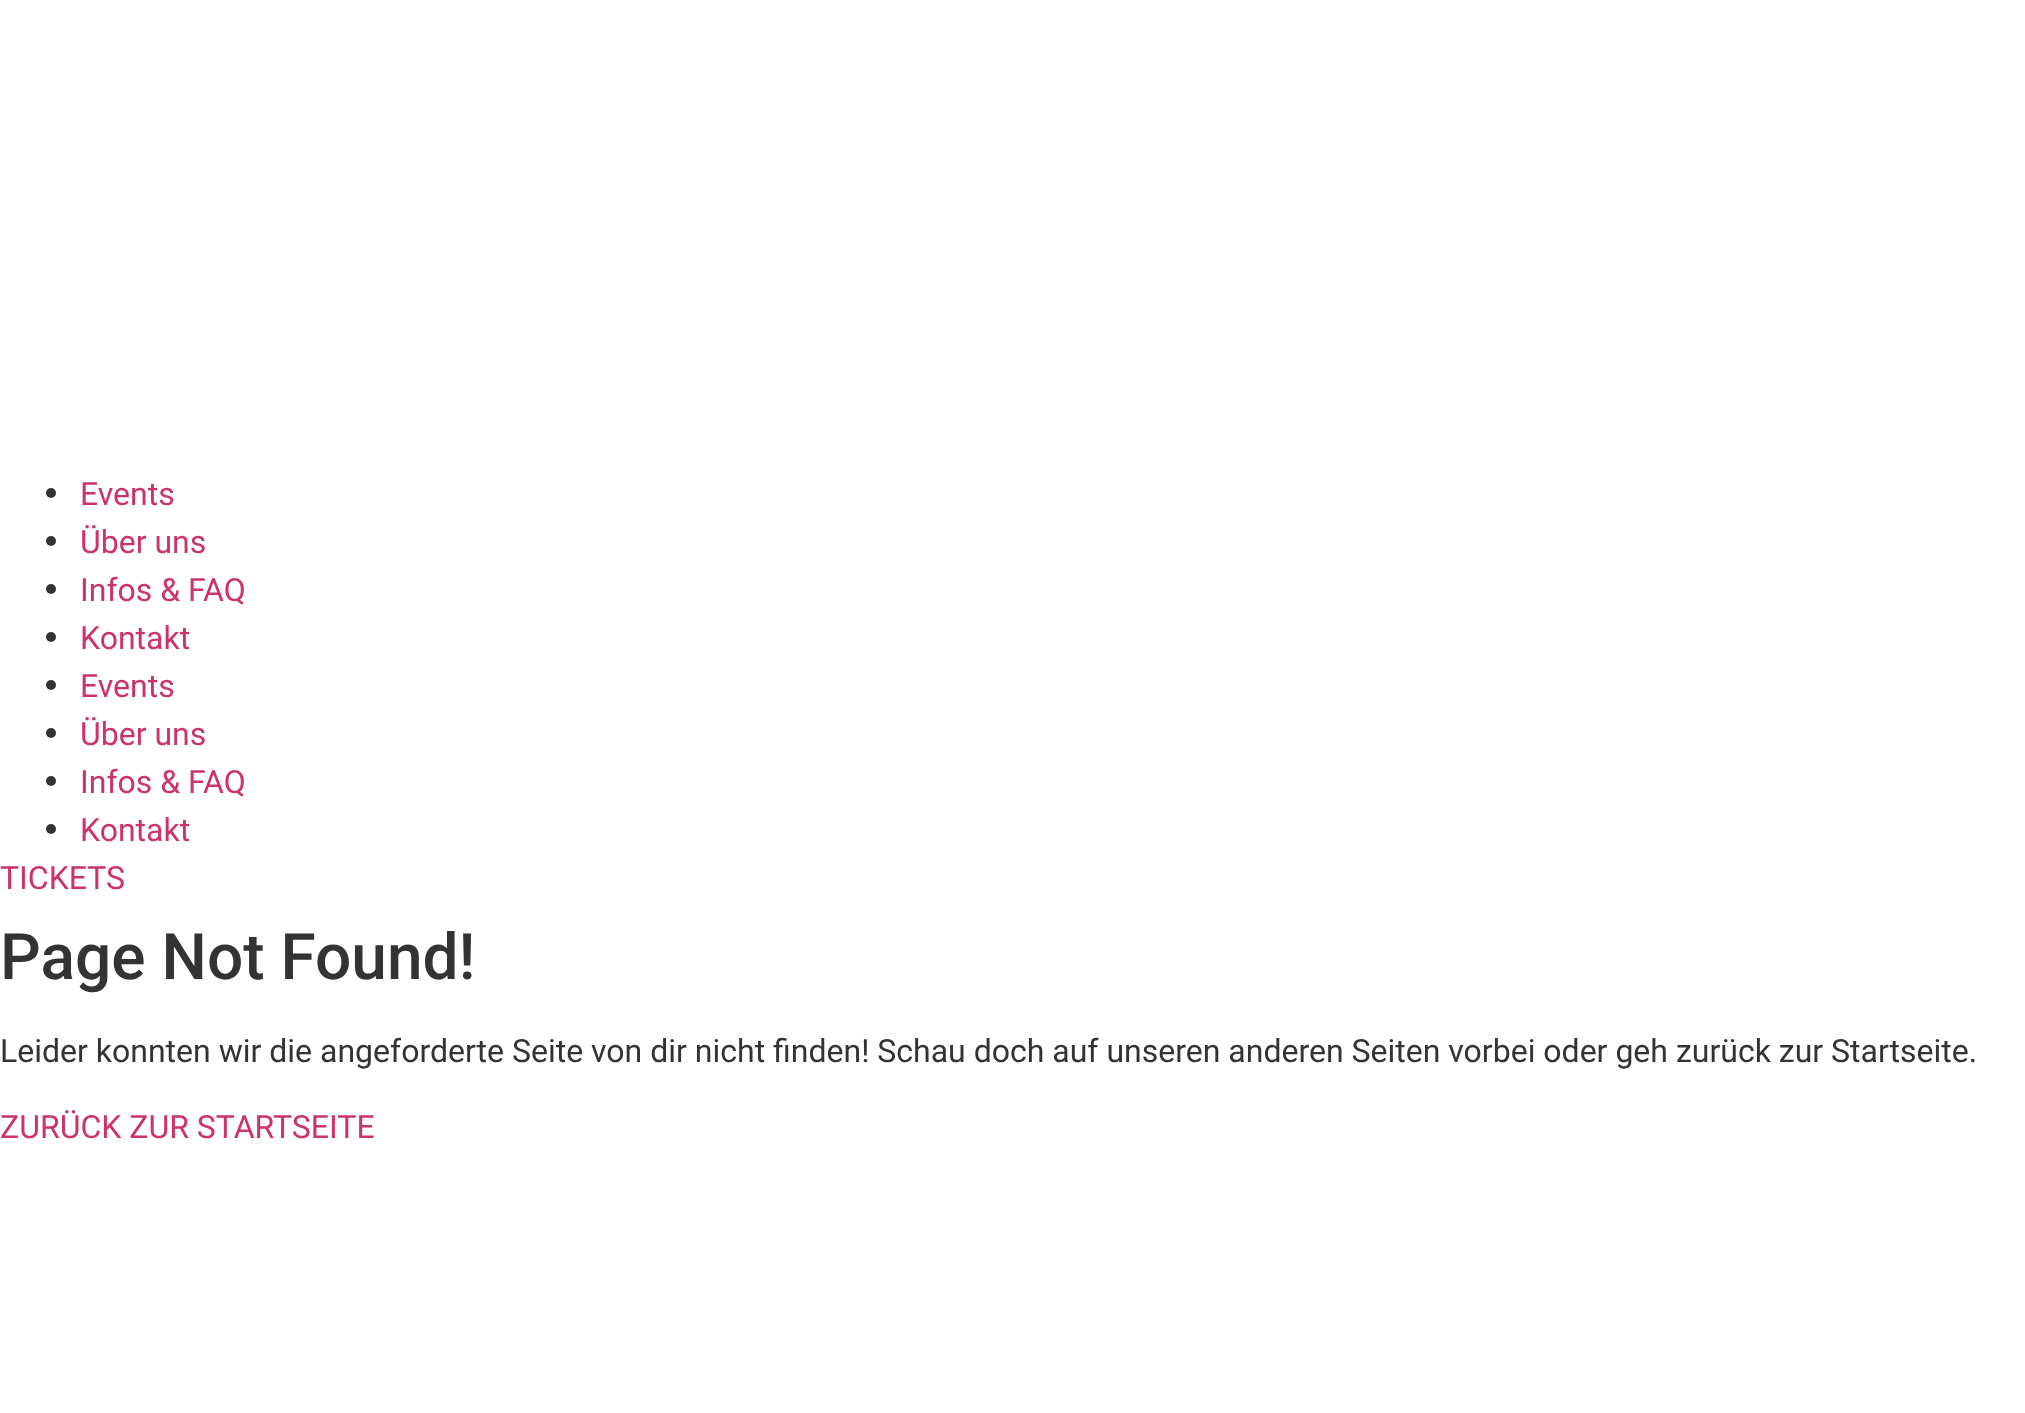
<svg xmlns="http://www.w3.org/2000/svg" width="2025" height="1413">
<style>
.a{font:32px Roboto;fill:#c36}
.b{font:500 64px Roboto;fill:#333}
.c{font:32px Roboto;fill:#333}
</style>
<rect width="100%" height="100%" fill="#fff"/>
<circle fill="#333" cx="51" cy="493" r="5"/>
<circle fill="#333" cx="51" cy="541" r="5"/>
<circle fill="#333" cx="51" cy="589" r="5"/>
<circle fill="#333" cx="51" cy="637" r="5"/>
<circle fill="#333" cx="51" cy="685" r="5"/>
<circle fill="#333" cx="51" cy="733" r="5"/>
<circle fill="#333" cx="51" cy="781" r="5"/>
<circle fill="#333" cx="51" cy="829" r="5"/>
<text class="a" x="80" y="505">Events</text>
<text class="a" x="80" y="553">Über uns</text>
<text class="a" x="80" y="601">Infos &amp; FAQ</text>
<text class="a" x="80" y="649">Kontakt</text>
<text class="a" x="80" y="697">Events</text>
<text class="a" x="80" y="745">Über uns</text>
<text class="a" x="80" y="793">Infos &amp; FAQ</text>
<text class="a" x="80" y="841">Kontakt</text>
<text class="a" x="0" y="889">TICKETS</text>
<text class="b" x="0" y="979">Page Not Found!</text>
<text class="c" x="0" y="1062">Leider konnten wir die angeforderte Seite von dir nicht finden! Schau doch auf unseren anderen Seiten vorbei oder geh zurück zur Startseite.</text>
<text class="a" x="0" y="1138">ZURÜCK ZUR STARTSEITE</text>
</svg>
